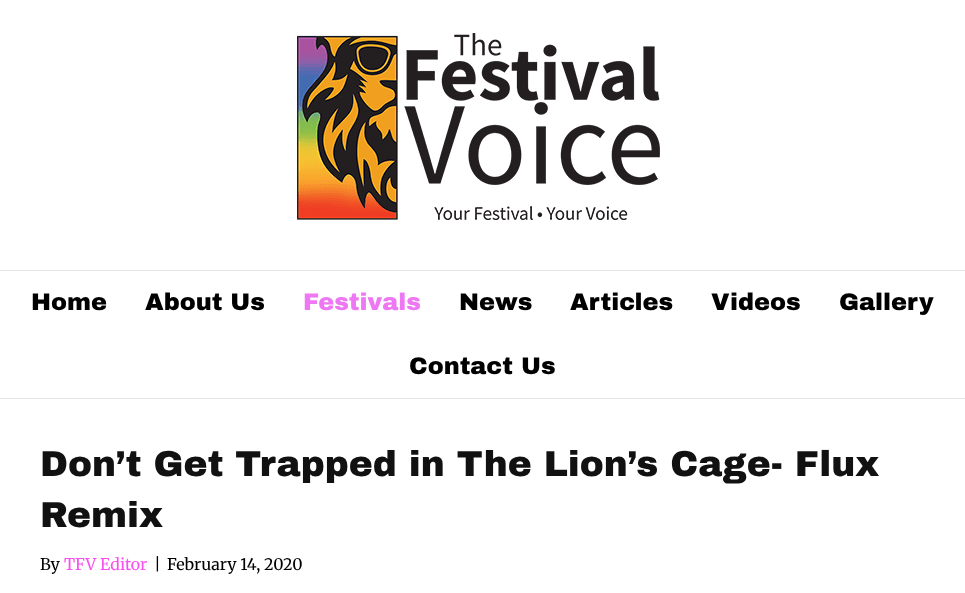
<svg xmlns="http://www.w3.org/2000/svg" width="965" height="593">
<style>
.a{font:900 24px Archivo Black;fill:#000}
.b{font:900 24px Archivo Black;fill:#ee77f4}
.c{font:900 36px Archivo Black;fill:#111}
.d{font:16px Merriweather;fill:#000}
.e{font:16px Merriweather;fill:#f751ef}
</style>
<rect width="100%" height="100%" fill="#fff"/>
<image href="1.png" x="297" y="33" width="363" height="187"/>
<path fill="#e6e6e6" d="M0 270h965v1H0z"/>
<path fill="#e6e6e6" d="M0 398h965v1H0z"/>
<text class="a" x="31" y="310">Home</text>
<text class="a" x="145" y="310">About Us</text>
<text class="b" x="303" y="310">Festivals</text>
<text class="a" x="459" y="310">News</text>
<text class="a" x="570" y="310">Articles</text>
<text class="a" x="711" y="310">Videos</text>
<text class="a" x="839" y="310">Gallery</text>
<text class="a" x="409" y="374">Contact Us</text>
<text class="c" x="40" y="476">Don’t Get Trapped in The Lion’s Cage- Flux</text>
<text class="c" x="40" y="527">Remix</text>
<text class="d" x="40" y="570">By</text>
<text class="e" x="64" y="570">TFV Editor</text>
<text class="d" x="154" y="570">|</text>
<text class="d" x="167" y="570">February 14, 2020</text>
</svg>
